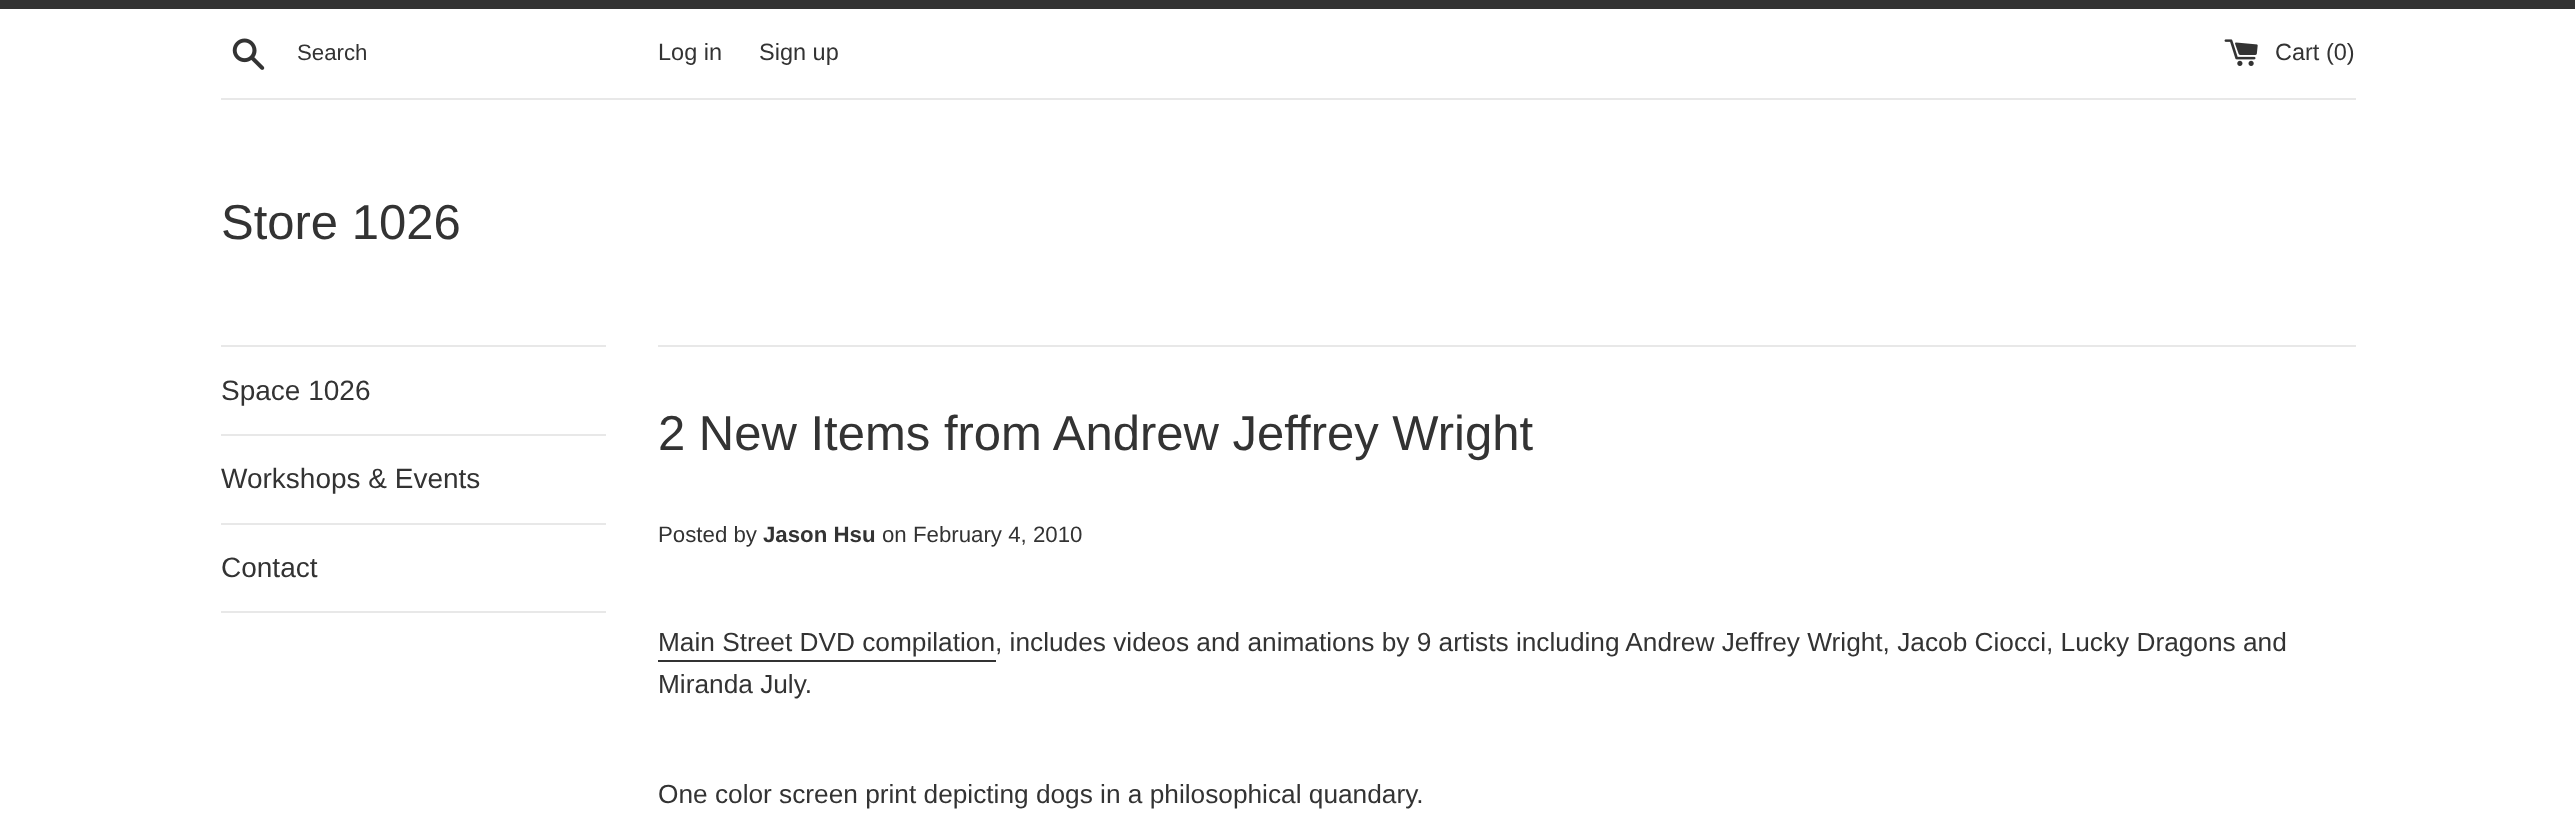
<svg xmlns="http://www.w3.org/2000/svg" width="2575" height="824">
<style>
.a{font:22.25px Liberation Sans;fill:#333}
.b{font:23.5px Liberation Sans;fill:#333}
.c{font:49px Liberation Sans;fill:#333}
.d{font:28px Liberation Sans;fill:#333}
.e{font:bold 22.25px Liberation Sans;fill:#333}
.f{font:26.25px Liberation Sans;fill:#333}
</style>
<rect width="100%" height="100%" fill="#fff"/>
<path fill="#333" d="M0 0h2575v9H0z"/>
<image href="1.png" x="232" y="38" width="33" height="32"/>
<image href="2.png" x="2224" y="39" width="34" height="27"/>
<path fill="#e8e8e8" d="M221 98h2135v2H221z"/>
<path fill="#e8e8e8" d="M221 345h385v2H221z"/>
<path fill="#e8e8e8" d="M221 434h385v2H221z"/>
<path fill="#e8e8e8" d="M221 523h385v2H221z"/>
<path fill="#e8e8e8" d="M221 611h385v2H221z"/>
<path fill="#e8e8e8" d="M658 345h1698v2H658z"/>
<path fill="#333" d="M658 660h338v2H658z"/>
<text class="a" x="297" y="60">Search</text>
<text class="b" x="658" y="60">Log in</text>
<text class="b" x="759" y="60">Sign up</text>
<text class="b" x="2275" y="60">Cart (0)</text>
<text class="c" x="221" y="239">Store 1026</text>
<text class="d" x="221" y="400">Space 1026</text>
<text class="d" x="221" y="488">Workshops &amp; Events</text>
<text class="d" x="221" y="577">Contact</text>
<text class="c" x="658" y="450">2 New Items from Andrew Jeffrey Wright</text>
<text class="a" x="658" y="542">Posted by</text>
<text class="e" x="763" y="542">Jason Hsu</text>
<text class="a" x="882" y="542">on February 4, 2010</text>
<text class="f" x="658" y="651">Main Street DVD compilation, includes videos and animations by 9 artists including Andrew Jeffrey Wright, Jacob Ciocci, Lucky Dragons and</text>
<text class="f" x="658" y="693">Miranda July.</text>
<text class="f" x="658" y="803">One color screen print depicting dogs in a philosophical quandary.</text>
</svg>
